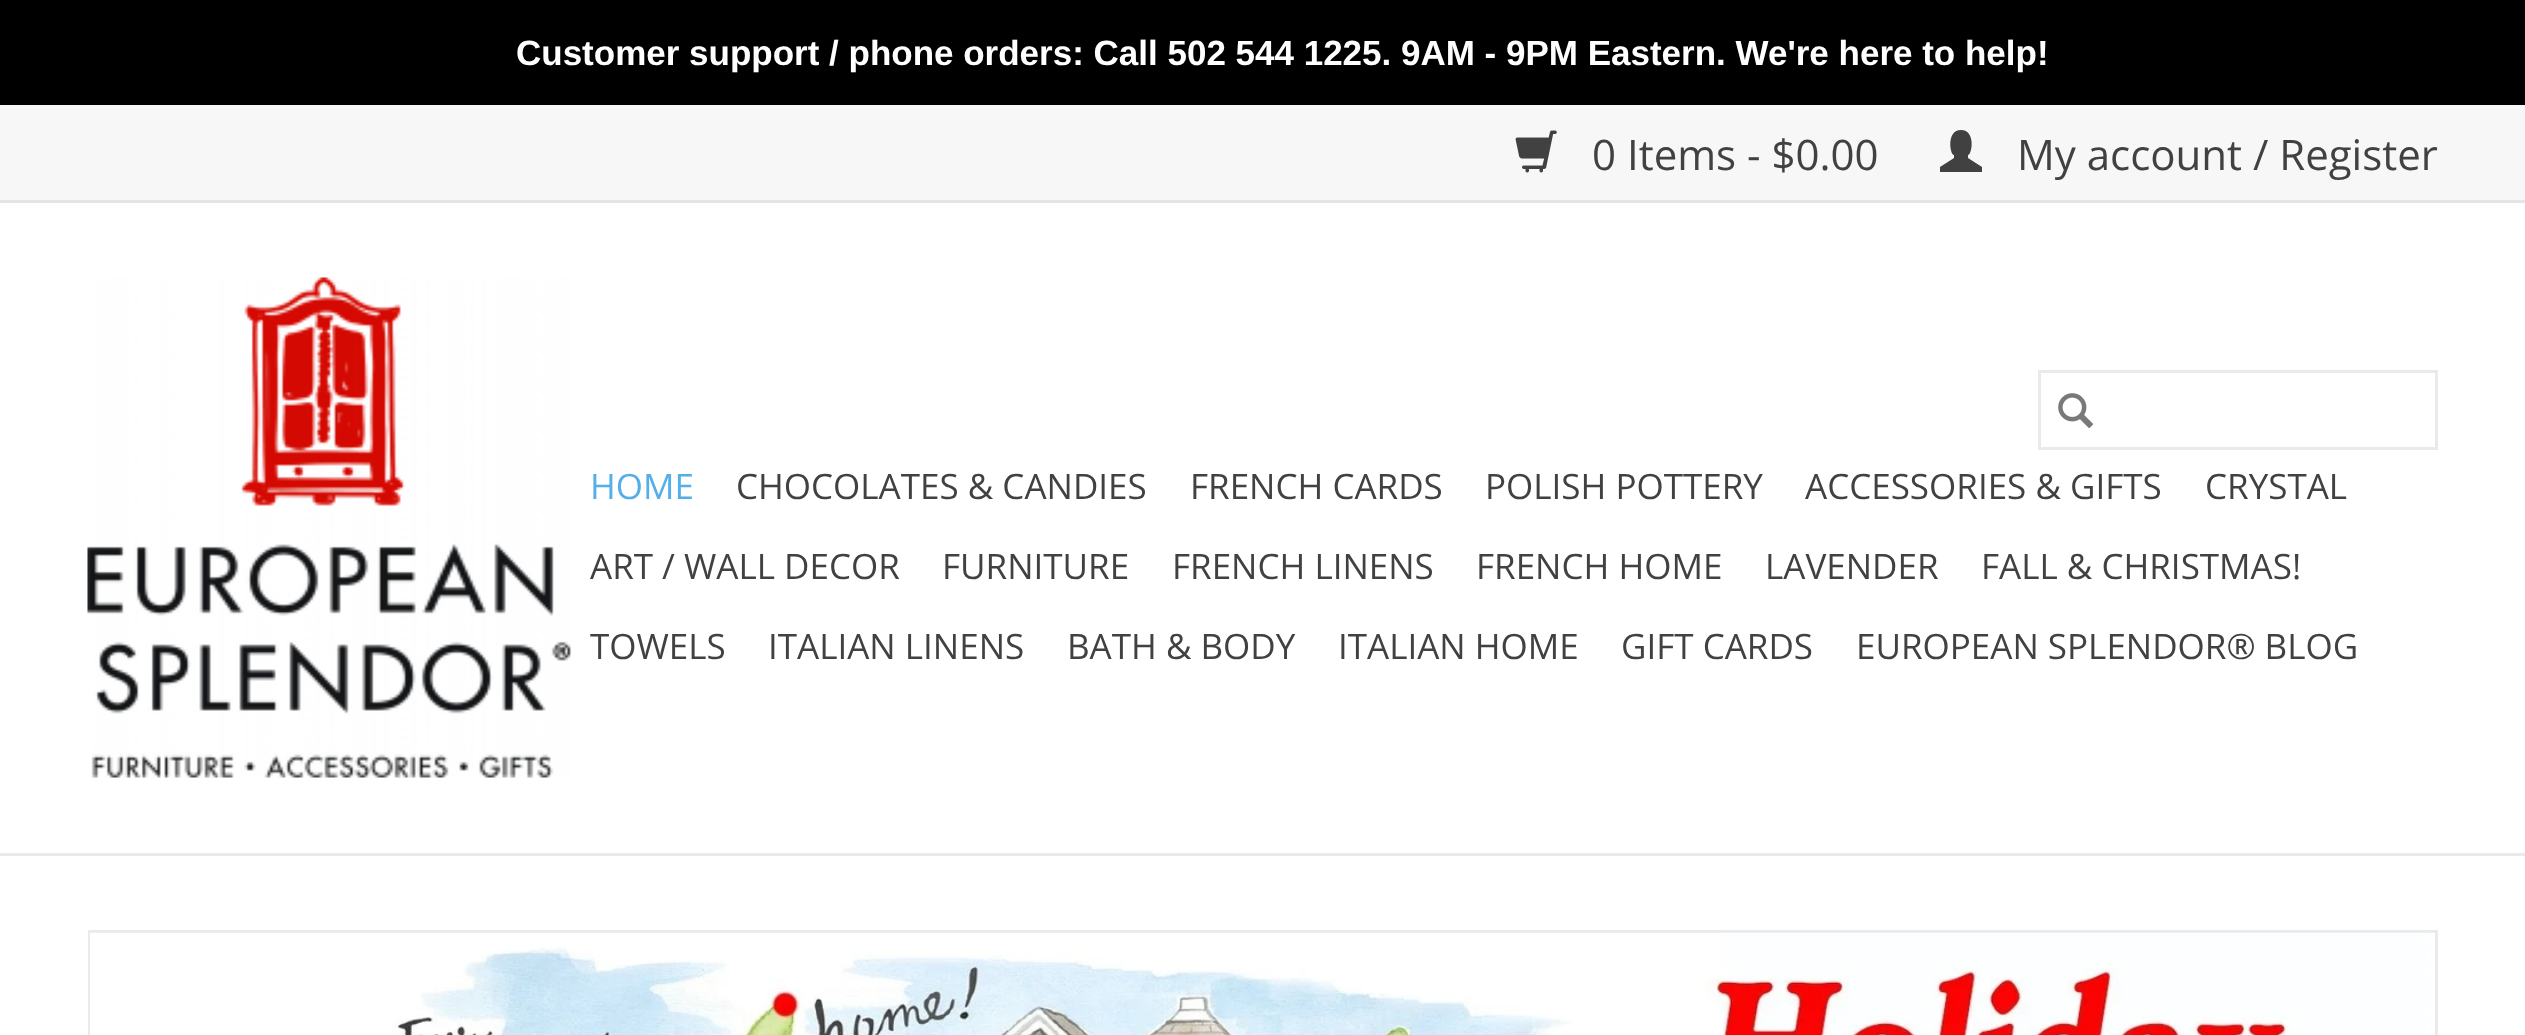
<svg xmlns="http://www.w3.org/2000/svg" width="2525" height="1035">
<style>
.a{font:bold 35px Liberation Sans;fill:#fff}
.b{font:42px Open Sans;fill:#414141}
.c{font:35px Open Sans;fill:#54afe9}
.d{font:35px Open Sans;fill:#414141}
</style>
<rect width="100%" height="100%" fill="#fff"/>
<path fill="#000" d="M0 0h2525v105H0z"/>
<path fill="#eaeaea" d="M0 853h2525v3H0z"/>
<path fill="#f7f7f7" d="M0 105h2525v95H0z"/>
<path fill="#e5e5e5" d="M0 200h2525v3H0z"/>
<image href="1.png" x="1515" y="130" width="42" height="43"/>
<path fill="#414141" d="M1940 172v-5l14-9v-3c-4 0-8-25 7-25c15 0 11 25 7 25v3l14 9v5z"/>
<image href="2.png" x="87" y="277" width="484" height="501"/>
<path fill="none" stroke="#eaeaea" stroke-width="3" d="M2039.5 371.5h397v77H2039.5z"/>
<image href="3.png" x="2058" y="393" width="35" height="35"/>
<path fill="none" stroke="#eaeaea" stroke-width="3" d="M89.5 931.5h2347v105H89.5z"/>
<image href="4.png" x="90" y="932" width="2345" height="103"/>
<text class="a" x="516" y="65">Customer support / phone orders: Call 502 544 1225. 9AM - 9PM Eastern. We're here to help!</text>
<text class="b" x="1592" y="170">0 Items - $0.00</text>
<text class="b" x="2017" y="170">My account / Register</text>
<text class="c" x="590" y="499">HOME</text>
<text class="d" x="736" y="499">CHOCOLATES &amp; CANDIES</text>
<text class="d" x="1190" y="499">FRENCH CARDS</text>
<text class="d" x="1485" y="499">POLISH POTTERY</text>
<text class="d" x="1805" y="499">ACCESSORIES &amp; GIFTS</text>
<text class="d" x="2205" y="499">CRYSTAL</text>
<text class="d" x="590" y="579">ART / WALL DECOR</text>
<text class="d" x="942" y="579">FURNITURE</text>
<text class="d" x="1172" y="579">FRENCH LINENS</text>
<text class="d" x="1476" y="579">FRENCH HOME</text>
<text class="d" x="1765" y="579">LAVENDER</text>
<text class="d" x="1981" y="579">FALL &amp; CHRISTMAS!</text>
<text class="d" x="590" y="659">TOWELS</text>
<text class="d" x="768" y="659">ITALIAN LINENS</text>
<text class="d" x="1067" y="659">BATH &amp; BODY</text>
<text class="d" x="1338" y="659">ITALIAN HOME</text>
<text class="d" x="1621" y="659">GIFT CARDS</text>
<text class="d" x="1856" y="659">EUROPEAN SPLENDOR® BLOG</text>
</svg>
